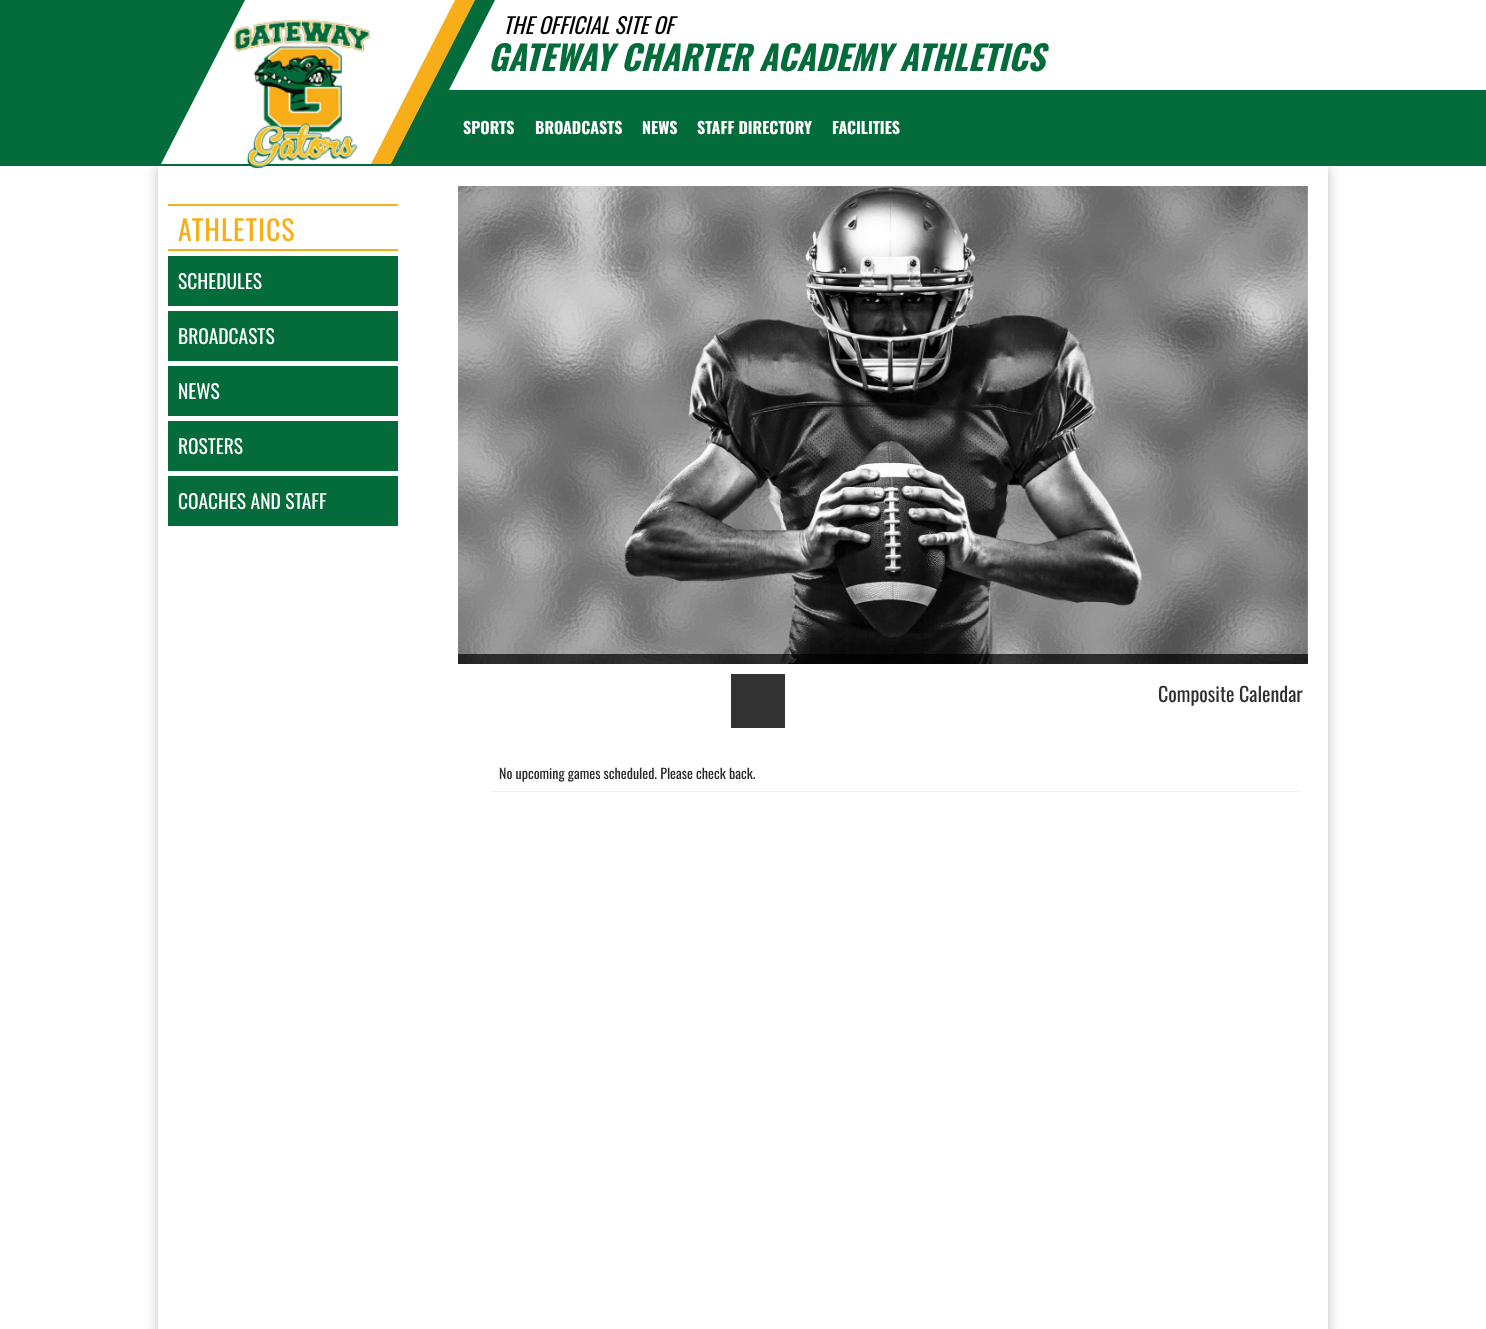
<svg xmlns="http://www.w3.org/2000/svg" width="1486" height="1329">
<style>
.a{font:italic 22px Oswald;fill:#000}
.b{font:italic bold 34px Oswald;fill:#046b3b}
.c{font:bold 16px Oswald;fill:#fff}
.d{font:28px Oswald;letter-spacing:1px;fill:#f8ae18}
.e{font:19.5px Oswald;fill:#fff}
.f{font:20px Oswald;fill:#2f2f2f}
.g{font:14px Oswald;fill:#262829}
</style>
<defs>
<clipPath id="clip1"><path d="M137 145h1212v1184h-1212zm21 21h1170v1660h-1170z" clip-rule="evenodd"/></clipPath>
</defs>
<rect width="100%" height="100%" fill="#fff"/>
<path fill="#046b3b" d="M0 0h245v90H0z"/>
<g clip-path="url(#clip1)">
<path fill="#00000040" filter="blur(6.5px)" d="M158 166h1170v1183H158z"/>
</g>
<path fill="#046b3b" d="M0 90h1486v76H0z"/>
<path fill="#fff" d="M245 0h230l-84 164h-230z"/>
<path fill="#f8ae18" d="M455 0h20l-84 164h-20z"/>
<image href="1.png" x="233" y="20" width="138" height="149"/>
<path fill="#046b3b" d="M475 0h20l-84 164h-20z"/>
<path fill="#f8ae18" d="M168 204h230v2H168z"/>
<path fill="#f8ae18" d="M168 249h230v2H168z"/>
<path fill="#046b3b" d="M168 256h230v50H168z"/>
<path fill="#046b3b" d="M168 311h230v50H168z"/>
<path fill="#046b3b" d="M168 366h230v50H168z"/>
<path fill="#046b3b" d="M168 421h230v50H168z"/>
<path fill="#046b3b" d="M168 476h230v50H168z"/>
<image href="2.png" x="458" y="186" width="850" height="478"/>
<path fill="#000000b3" d="M458 654h850v10H458z"/>
<path fill="#333" d="M731 674h54v54H731z"/>
<path fill="#f2f2f2" d="M491 791h811v1H491z"/>
<text class="a" x="503" y="34">THE OFFICIAL SITE OF</text>
<text class="b" x="488" y="71">GATEWAY CHARTER ACADEMY ATHLETICS</text>
<text class="c" x="463" y="134">SPORTS</text>
<text class="c" x="535" y="134">BROADCASTS</text>
<text class="c" x="642" y="134">NEWS</text>
<text class="c" x="697" y="134">STAFF DIRECTORY</text>
<text class="c" x="832" y="134">FACILITIES</text>
<text class="d" x="178" y="241">ATHLETICS</text>
<text class="e" x="178" y="289">SCHEDULES</text>
<text class="e" x="178" y="344">BROADCASTS</text>
<text class="e" x="178" y="399">NEWS</text>
<text class="e" x="178" y="454">ROSTERS</text>
<text class="e" x="178" y="509">COACHES AND STAFF</text>
<text class="f" x="1158" y="702">Composite Calendar</text>
<text class="g" x="499" y="779">No upcoming games scheduled. Please check back.</text>
</svg>
